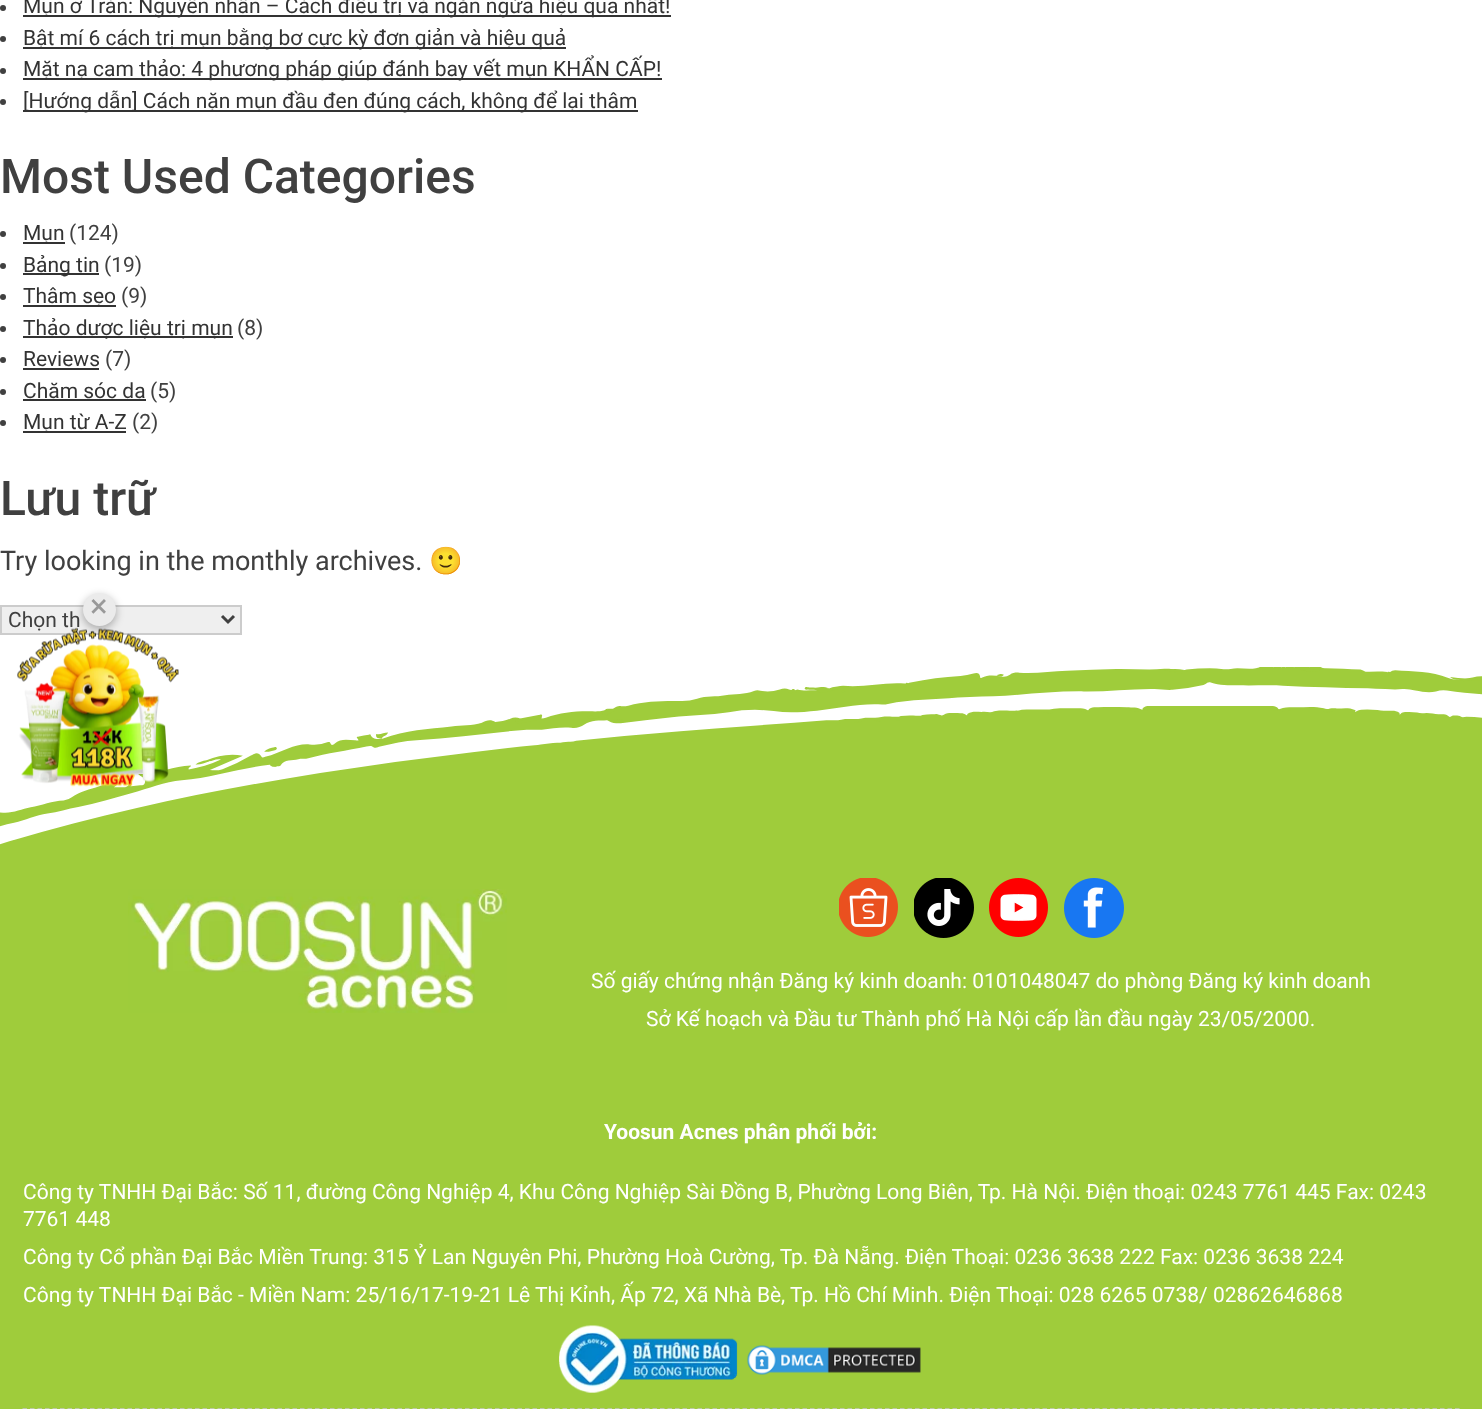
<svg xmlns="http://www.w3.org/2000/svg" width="1482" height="1409">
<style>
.a{font:21px Roboto;fill:#333}
.b{font:500 48px Roboto;fill:#404040}
.c{font:21px Roboto;fill:#404040}
.d{font:27px Roboto;fill:#404040}
.e{font:27px Noto Color Emoji;fill:#404040}
.f{font:21px Roboto;fill:#fff}
.g{font:bold 21px Roboto;fill:#fff}
.h{font:33px Roboto;fill:#999}
</style>
<rect width="100%" height="100%" fill="#fff"/>
<circle fill="#404040" cx="3" cy="8" r="3"/>
<path fill="#333" d="M23 15h648v2H23z"/>
<circle fill="#404040" cx="3" cy="39" r="3"/>
<path fill="#333" d="M23 47h543v2H23z"/>
<circle fill="#404040" cx="3" cy="71" r="3"/>
<path fill="#333" d="M23 78h639v2H23z"/>
<circle fill="#404040" cx="3" cy="102" r="3"/>
<path fill="#333" d="M23 110h615v2H23z"/>
<circle fill="#404040" cx="3" cy="234" r="3"/>
<path fill="#333" d="M23 242h42v2H23z"/>
<circle fill="#404040" cx="3" cy="266" r="3"/>
<path fill="#333" d="M23 273h76v2H23z"/>
<circle fill="#404040" cx="3" cy="297" r="3"/>
<path fill="#333" d="M23 305h93v2H23z"/>
<circle fill="#404040" cx="3" cy="329" r="3"/>
<path fill="#333" d="M23 336h210v2H23z"/>
<circle fill="#404040" cx="3" cy="360" r="3"/>
<path fill="#333" d="M23 368h76v2H23z"/>
<circle fill="#404040" cx="3" cy="392" r="3"/>
<path fill="#333" d="M23 399h123v2H23z"/>
<circle fill="#404040" cx="3" cy="423" r="3"/>
<path fill="#333" d="M23 431h103v2H23z"/>
<path fill="#efefef" stroke="#ccc" stroke-width="2" d="M1 606h240v28H1z"/>
<path fill="none" stroke="#404040" stroke-width="3" d="M222 616l6 6l6-6"/>
<image href="1.png" x="0" y="667" width="1482" height="742"/>
<image href="2.png" x="128" y="889" width="379" height="124"/>
<image href="3.png" x="839" y="878" width="59" height="59"/>
<image href="4.png" x="914" y="878" width="60" height="60"/>
<image href="5.png" x="989" y="878" width="59" height="59"/>
<image href="6.png" x="1064" y="878" width="60" height="60"/>
<image href="7.png" x="559" y="1325" width="179" height="68"/>
<image href="8.png" x="747" y="1345" width="174" height="30"/>
<path fill="none" stroke="#c9c9c9" stroke-width="1.5" stroke-dasharray="4.5 3" d="M22.5 1409h1437"/>
<text class="a" x="23" y="13">Mụn ở Trán: Nguyên nhân – Cách điều trị và ngăn ngừa hiệu quả nhất!</text>
<text class="a" x="23" y="45">Bật mí 6 cách trị mụn bằng bơ cực kỳ đơn giản và hiệu quả</text>
<text class="a" x="23" y="76">Mặt nạ cam thảo: 4 phương pháp giúp đánh bay vết mụn KHẨN CẤP!</text>
<text class="a" x="23" y="108">[Hướng dẫn] Cách nặn mụn đầu đen đúng cách, không để lại thâm</text>
<text class="b" x="0" y="193">Most Used Categories</text>
<text class="a" x="23" y="240">Mụn</text>
<text class="c" x="69" y="240">(124)</text>
<text class="a" x="23" y="272">Bảng tin</text>
<text class="c" x="104" y="272">(19)</text>
<text class="a" x="23" y="303">Thâm sẹo</text>
<text class="c" x="121" y="303">(9)</text>
<text class="a" x="23" y="335">Thảo dược liệu trị mụn</text>
<text class="c" x="237" y="335">(8)</text>
<text class="a" x="23" y="366">Reviews</text>
<text class="c" x="105" y="366">(7)</text>
<text class="a" x="23" y="398">Chăm sóc da</text>
<text class="c" x="150" y="398">(5)</text>
<text class="a" x="23" y="429">Mụn từ A-Z</text>
<text class="c" x="132" y="429">(2)</text>
<text class="b" x="0" y="515">Lưu trữ</text>
<text class="d" x="0" y="570">Try looking in the monthly archives.</text>
<text class="e" x="429" y="570">🙂</text>
<text class="c" x="8" y="627">Chọn th</text>
<text class="f" x="591" y="988">Số giấy chứng nhận Đăng ký kinh doanh: 0101048047 do phòng Đăng ký kinh doanh</text>
<text class="f" x="646" y="1026">Sở Kế hoạch và Đầu tư Thành phố Hà Nội cấp lần đầu ngày 23/05/2000.</text>
<text class="g" x="604" y="1139">Yoosun Acnes phân phối bởi:</text>
<text class="f" x="23" y="1199">Công ty TNHH Đại Bắc: Số 11, đường Công Nghiệp 4, Khu Công Nghiệp Sài Đồng B, Phường Long Biên, Tp. Hà Nội. Điện thoại: 0243 7761 445 Fax: 0243</text>
<text class="f" x="23" y="1226">7761 448</text>
<text class="f" x="23" y="1264">Công ty Cổ phần Đại Bắc Miền Trung: 315 Ỷ Lan Nguyên Phi, Phường Hoà Cường, Tp. Đà Nẵng. Điện Thoại: 0236 3638 222 Fax: 0236 3638 224</text>
<text class="f" x="23" y="1302">Công ty TNHH Đại Bắc - Miền Nam: 25/16/17-19-21 Lê Thị Kỉnh, Ấp 72, Xã Nhà Bè, Tp. Hồ Chí Minh. Điện Thoại: 028 6265 0738/ 02862646868</text>
<image href="9.png" x="17" y="627" width="162" height="160"/>
<rect fill="#0000004d" filter="blur(4.5px)" x="83" y="596" width="33" height="33" rx="16.5"/>
<circle fill="#ebebeb" cx="99.5" cy="609.5" r="16.5"/>
<text class="h" x="90" y="617">×</text>
</svg>
